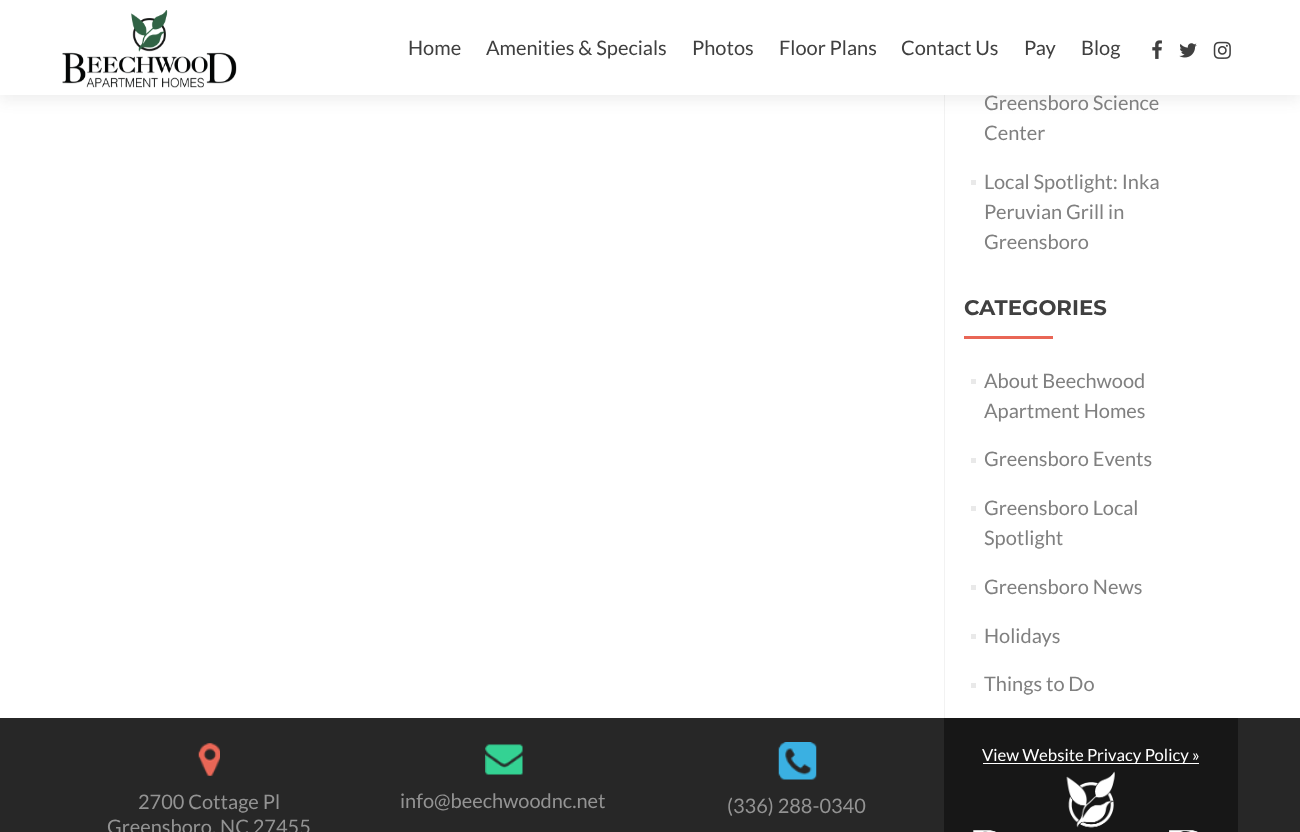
<svg xmlns="http://www.w3.org/2000/svg" width="1300" height="832">
<style>
.a{font:20px Lato;fill:#404040}
.b{font:20px Lato;fill:#808080}
.c{font:bold 21.25px Montserrat;fill:#404040}
.d{font:16.7px Lato;fill:#fff}
.e{font:20px Lato;fill:#939393}
</style>
<rect width="100%" height="100%" fill="#fff"/>
<path fill="#f2f2f2" d="M944 95h1v623H944z"/>
<path fill="#32323214" filter="blur(7px)" d="M0 6h1300v95H0z"/>
<path fill="#fff" d="M0 0h1300v95H0z"/>
<image href="1.png" x="62" y="10" width="175" height="78"/>
<image href="2.png" x="1152" y="40" width="10" height="19"/>
<image href="3.png" x="1179" y="43" width="18" height="15"/>
<image href="4.png" x="1213" y="41" width="18" height="18"/>
<path fill="#e9e9e9" d="M971 180h5v5H971z"/>
<path fill="#e96656" d="M964 336h89v3H964z"/>
<path fill="#e9e9e9" d="M971 379h5v5H971z"/>
<path fill="#e9e9e9" d="M971 458h5v5H971z"/>
<path fill="#e9e9e9" d="M971 506h5v5H971z"/>
<path fill="#e9e9e9" d="M971 585h5v5H971z"/>
<path fill="#e9e9e9" d="M971 634h5v5H971z"/>
<path fill="#e9e9e9" d="M971 683h5v5H971z"/>
<path fill="#272727" d="M0 718h1300v114H0z"/>
<path fill="#171717" d="M944 718h294v114H944z"/>
<path fill="#fff" d="M983 763h216v1H983z"/>
<image href="5.png" x="973" y="771" width="225" height="61"/>
<image href="6.png" x="198" y="743" width="22" height="33"/>
<image href="7.png" x="485" y="744" width="38" height="31"/>
<image href="8.png" x="778" y="742" width="39" height="38"/>
<text class="a" x="408" y="55">Home</text>
<text class="a" x="486" y="55">Amenities &amp; Specials</text>
<text class="a" x="692" y="55">Photos</text>
<text class="a" x="779" y="55">Floor Plans</text>
<text class="a" x="901" y="55">Contact Us</text>
<text class="a" x="1024" y="55">Pay</text>
<text class="a" x="1081" y="55">Blog</text>
<text class="b" x="984" y="110">Greensboro Science</text>
<text class="b" x="984" y="140">Center</text>
<text class="b" x="984" y="189">Local Spotlight: Inka</text>
<text class="b" x="984" y="219">Peruvian Grill in</text>
<text class="b" x="984" y="249">Greensboro</text>
<text class="c" x="964" y="315">CATEGORIES</text>
<text class="b" x="984" y="388">About Beechwood</text>
<text class="b" x="984" y="418">Apartment Homes</text>
<text class="b" x="984" y="466">Greensboro Events</text>
<text class="b" x="984" y="515">Greensboro Local</text>
<text class="b" x="984" y="545">Spotlight</text>
<text class="b" x="984" y="594">Greensboro News</text>
<text class="b" x="984" y="643">Holidays</text>
<text class="b" x="984" y="691">Things to Do</text>
<text class="d" x="982" y="761">View Website Privacy Policy »</text>
<text class="e" x="138" y="809">2700 Cottage Pl</text>
<text class="e" x="107" y="834">Greensboro, NC 27455</text>
<text class="e" x="400" y="808">info@beechwoodnc.net</text>
<text class="e" x="727" y="813">(336) 288-0340</text>
</svg>
